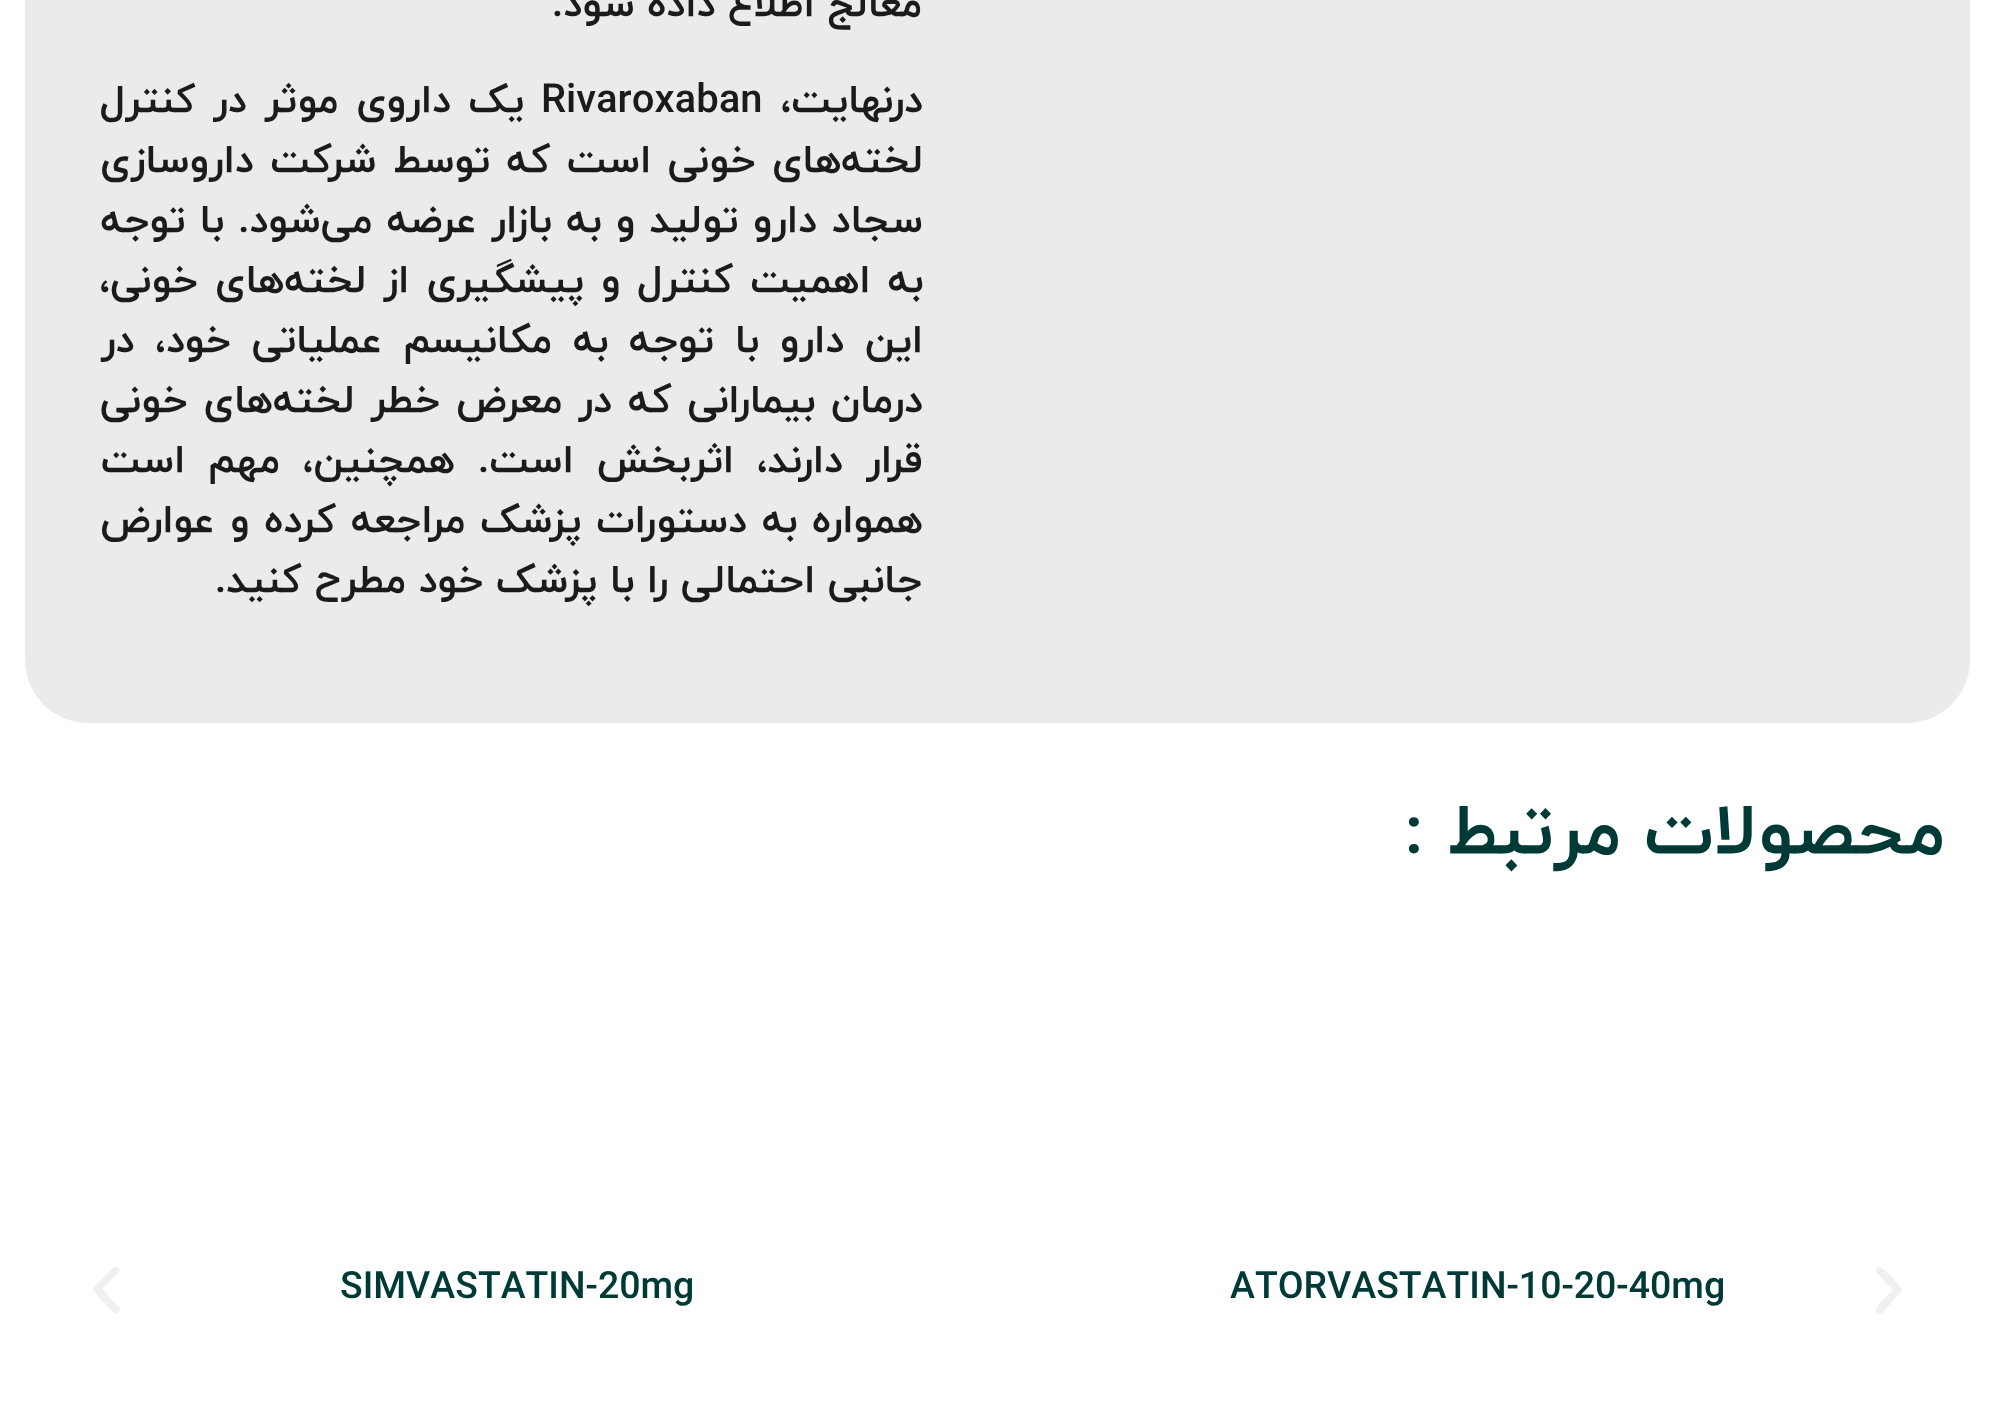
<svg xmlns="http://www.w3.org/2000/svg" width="1995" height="1422">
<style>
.a{font:bold 40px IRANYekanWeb;direction:rtl;fill:#1b1b1b}
.b{font:bold 40px IRANYekanWeb;fill:#1b1b1b}
.c{font:bold 72.5px IRANYekanWeb;direction:rtl;fill:#003a36}
.d{font:bold 37.5px IRANYekanWeb;fill:#003a36}
</style>
<rect width="100%" height="100%" fill="#fff"/>
<rect fill="#ebebeb" x="25" y="-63" width="1945" height="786" rx="63"/>
<path fill="#f0f0f0" d="M1901 1292c3-3-1-6-3-8l-12-13c-3-2-7-7-10-2c0 1 0 2 0 3l17 18c-3 3-17 16-17 19c-1 4 3 5 6 4z"/>
<image href="1.png" x="93" y="1266" width="27" height="48"/>
<text class="a" x="922" y="16">معالج اطلاع داده شود.</text>
<text class="a" x="923" y="112">درنهایت،</text>
<text class="b" x="541" y="112">Rivaroxaban</text>
<text class="a" x="524" y="112" word-spacing="5">یک داروی موثر در کنترل</text>
<text class="a" x="923" y="172" word-spacing="3.75">لخته‌های خونی است که توسط شرکت داروسازی</text>
<text class="a" x="923" y="232" word-spacing="1.75">سجاد دارو تولید و به بازار عرضه می‌شود. با توجه</text>
<text class="a" x="923" y="292" word-spacing="4.5">به اهمیت کنترل و پیشگیری از لخته‌های خونی،</text>
<text class="a" x="923" y="352" word-spacing="8.25">این دارو با توجه به مکانیسم عملیاتی خود، در</text>
<text class="a" x="923" y="412" word-spacing="3.25">درمان بیمارانی که در معرض خطر لخته‌های خونی</text>
<text class="a" x="923" y="472" word-spacing="10.25">قرار دارند، اثربخش است. همچنین، مهم است</text>
<text class="a" x="923" y="532" word-spacing="2.25">همواره به دستورات پزشک مراجعه کرده و عوارض</text>
<text class="a" x="922" y="592">جانبی احتمالی را با پزشک خود مطرح کنید.</text>
<text class="c" x="1945" y="853">محصولات مرتبط :</text>
<text class="d" x="1230" y="1298">ATORVASTATIN-10-20-40mg</text>
<text class="d" x="340" y="1298">SIMVASTATIN-20mg</text>
</svg>
